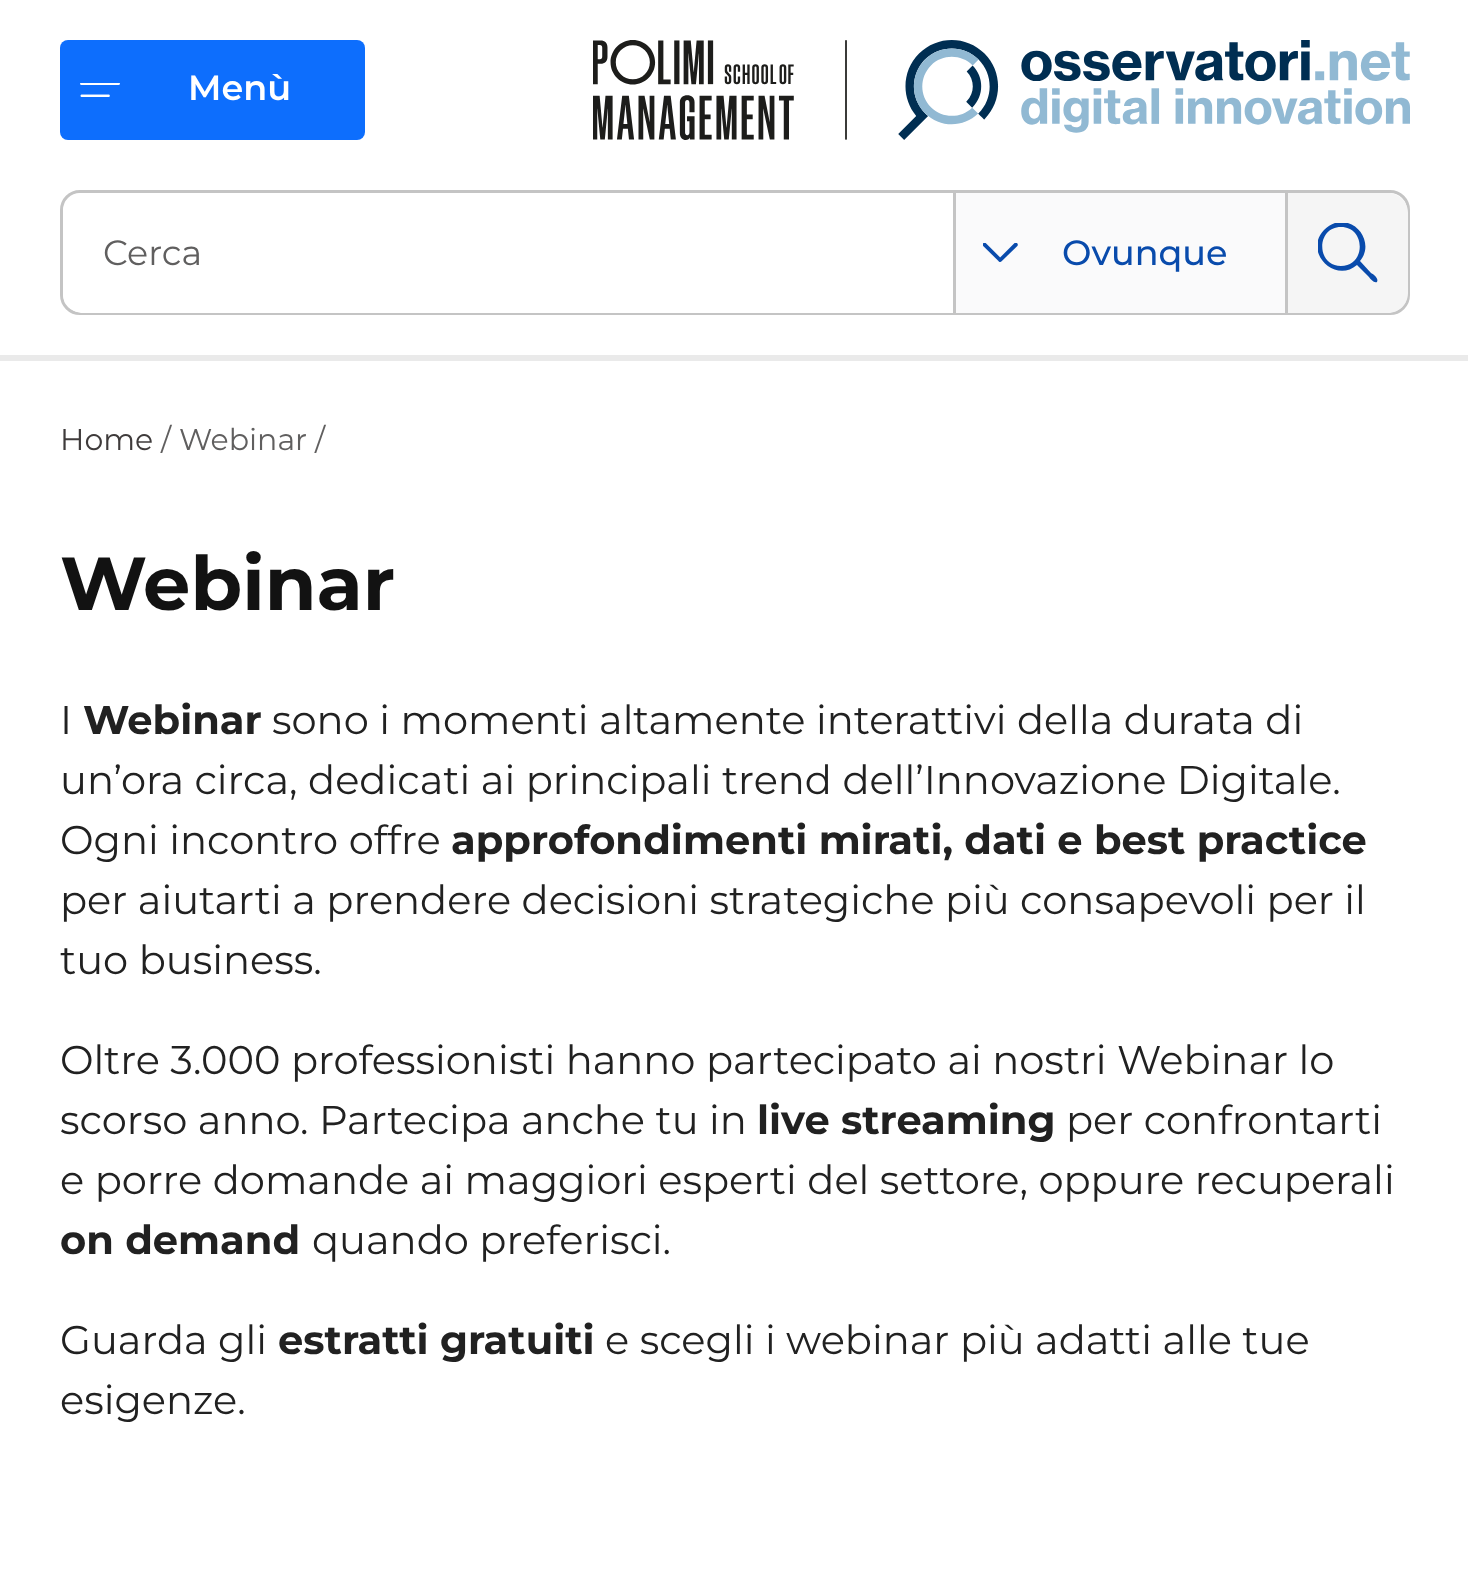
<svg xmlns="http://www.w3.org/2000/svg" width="1468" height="1584">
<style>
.a{font:600 35px Montserrat;fill:#fff}
.b{font:35px Montserrat;fill:#605f5f}
.c{font:500 35px Montserrat;fill:#094bac}
.d{font:30px Montserrat;fill:#3f3b3b}
.e{font:30px Montserrat;fill:#605f5f}
.f{font:bold 75px Montserrat;fill:#121212}
.g{font:40px Montserrat;fill:#212121}
.h{font:bold 40px Montserrat;fill:#212121}
</style>
<defs>
<clipPath id="clip1"><path d="M1318 223h60v60H1318z"/></clipPath>
</defs>
<rect width="100%" height="100%" fill="#fff"/>
<path fill="#eaeaea" d="M0 355h1468v6H0z"/>
<rect fill="#0d6efd" x="60" y="40" width="305" height="100" rx="8"/>
<image href="1.png" x="80" y="83" width="40" height="14"/>
<image href="2.png" x="593" y="40" width="817" height="100"/>
<rect fill="none" stroke="#c4c4c4" stroke-width="3" x="61.5" y="191.5" width="1347" height="122" rx="18.5"/>
<path fill="#fff" d="M83 193h870v120h-870c-11 0-20-9-20-20v-80c0-11 9-20 20-20z"/>
<path fill="#fafafb" d="M956 193h329v120H956z"/>
<path fill="#c4c4c4" d="M953 193h3v120H953z"/>
<image href="3.png" x="983" y="243" width="35" height="19"/>
<path fill="#f5f5f5" d="M1288 193h100c11 0 20 9 20 20v80c0 11-9 20-20 20h-100z"/>
<path fill="#c4c4c4" d="M1285 193h3v120H1285z"/>
<g clip-path="url(#clip1)">
<path fill="#094bac" fill-rule="evenodd" d="M1341 222c-6 0-12 3-17 8c-21 22 11 54 33 35l11 11c1 1 6 8 9 6c2-4-4-8-6-9l-11-12c13-15 1-39-19-39zm0 5c25 0 25 39 0 39c-25 0-25-39 0-39z"/>
</g>
<text class="a" x="188" y="100">Menù</text>
<text class="b" x="103" y="265">Cerca</text>
<text class="c" x="1062" y="265">Ovunque</text>
<text class="d" x="60" y="450">Home</text>
<text class="e" x="161" y="450">/ Webinar /</text>
<text class="f" x="60" y="610">Webinar</text>
<text class="g" x="60" y="734">I</text>
<text class="h" x="83" y="734">Webinar</text>
<text class="g" x="272" y="734">sono i momenti altamente interattivi della durata di</text>
<text class="g" x="60" y="794">un’ora circa, dedicati ai principali trend dell’Innovazione Digitale.</text>
<text class="g" x="60" y="854">Ogni incontro offre</text>
<text class="h" x="451" y="854">approfondimenti mirati, dati e best practice</text>
<text class="g" x="60" y="914">per aiutarti a prendere decisioni strategiche più consapevoli per il</text>
<text class="g" x="60" y="974">tuo business.</text>
<text class="g" x="60" y="1074">Oltre 3.000 professionisti hanno partecipato ai nostri Webinar lo</text>
<text class="g" x="60" y="1134">scorso anno. Partecipa anche tu in</text>
<text class="h" x="757" y="1134">live streaming</text>
<text class="g" x="1066" y="1134">per confrontarti</text>
<text class="g" x="60" y="1194">e porre domande ai maggiori esperti del settore, oppure recuperali</text>
<text class="h" x="60" y="1254">on demand</text>
<text class="g" x="312" y="1254">quando preferisci.</text>
<text class="g" x="60" y="1354">Guarda gli</text>
<text class="h" x="278" y="1354">estratti gratuiti</text>
<text class="g" x="605" y="1354">e scegli i webinar più adatti alle tue</text>
<text class="g" x="60" y="1414">esigenze.</text>
</svg>
